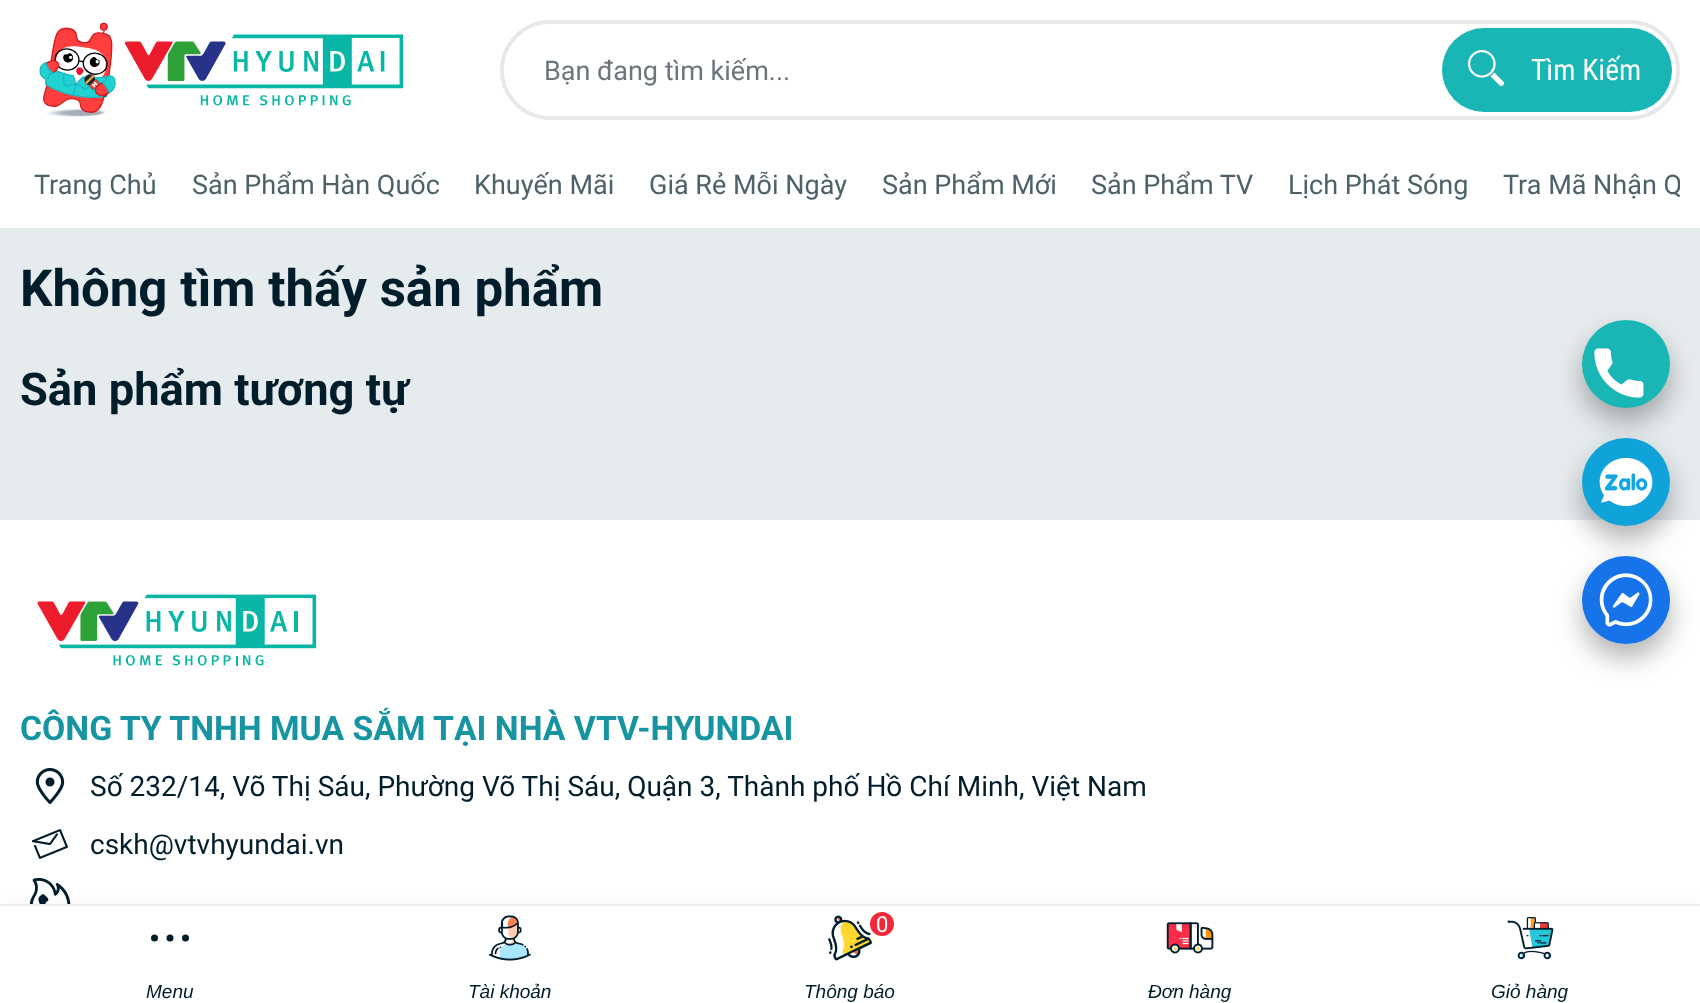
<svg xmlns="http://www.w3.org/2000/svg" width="1700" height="1003">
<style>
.a{font:27px Roboto;fill:#6c757d}
.b{font:29.5px Roboto Condensed;fill:#fff}
.c{font:27px Roboto;fill:#4d616b}
.d{font:bold 51px Roboto;fill:#001d2b}
.e{font:bold 45.25px Roboto;fill:#001d2b}
.f{font:bold 33.75px Roboto;fill:#1794a1}
.g{font:28px Roboto;fill:#001d2b}
.h{font:italic 19px Liberation Sans;fill:#001d2b}
.i{font:22px Roboto;fill:#fff}
</style>
<defs>
<clipPath id="clip1"><path d="M20 140h1660v88H20z"/></clipPath>
</defs>
<rect width="100%" height="100%" fill="#e6ebed"/>
<path fill="#fff" d="M0 0h1700v228H0z"/>
<image href="1.png" x="39" y="22" width="365" height="95"/>
<rect fill="none" stroke="#e6e8ea" stroke-width="4" x="502" y="22" width="1176" height="96" rx="48"/>
<rect fill="#1ab6b5" x="1442" y="28" width="230" height="84" rx="42"/>
<image href="2.png" x="1468" y="50" width="36" height="36"/>
<rect fill="#0000004d" filter="blur(13.5px)" x="1582" y="334" width="88" height="88" rx="44"/>
<circle fill="#1ab6b5" cx="1626" cy="364" r="44"/>
<image href="3.png" x="1594" y="348" width="50" height="50"/>
<path fill="#fff" d="M0 520h1700v384H0z"/>
<rect fill="#0000004d" filter="blur(13.5px)" x="1582" y="452" width="88" height="88" rx="44"/>
<circle fill="#0fa3da" cx="1626" cy="482" r="44"/>
<image href="4.png" x="1599" y="457" width="54" height="50"/>
<rect fill="#0000004d" filter="blur(13.5px)" x="1582" y="570" width="88" height="88" rx="44"/>
<circle fill="#1773ea" cx="1626" cy="600" r="44"/>
<image href="5.png" x="1599" y="573" width="54" height="54"/>
<image href="6.png" x="37" y="594" width="280" height="72"/>
<image href="7.png" x="35" y="768" width="30" height="36"/>
<image href="8.png" x="32" y="829" width="36" height="30"/>
<image href="9.png" x="29" y="878" width="42" height="26"/>
<path fill="#00000026" filter="blur(13.5px)" d="M0 918h1700v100H0z"/>
<path fill="#fff" d="M0 906h1700v97H0z"/>
<path fill="#ededed" d="M0 904h1700v2H0z"/>
<image href="10.png" x="488" y="915" width="43" height="46"/>
<image href="11.png" x="828" y="915" width="44" height="46"/>
<circle fill="#f22738" cx="882" cy="924" r="12"/>
<image href="12.png" x="1507" y="917" width="47" height="43"/>
<circle fill="#001d2b" cx="154.5" cy="938" r="3.5"/>
<circle fill="#001d2b" cx="170" cy="938" r="3.5"/>
<circle fill="#001d2b" cx="185.5" cy="938" r="3.5"/>
<image href="13.png" x="1166" y="922" width="48" height="32"/>
<text class="a" x="544" y="80">Bạn đang tìm kiếm...</text>
<text class="b" x="1531" y="80">Tìm Kiếm</text>
<text class="c" x="34" y="194">Trang Chủ</text>
<text class="c" x="192" y="194">Sản Phẩm Hàn Quốc</text>
<text class="c" x="474" y="194">Khuyến Mãi</text>
<text class="c" x="649" y="194">Giá Rẻ Mỗi Ngày</text>
<text class="c" x="882" y="194">Sản Phẩm Mới</text>
<text class="c" x="1091" y="194">Sản Phẩm TV</text>
<text class="c" x="1288" y="194">Lịch Phát Sóng</text>
<g clip-path="url(#clip1)">
<text class="c" x="1503" y="194">Tra Mã Nhận Q</text>
</g>
<text class="d" x="20" y="306">Không tìm thấy sản phẩm</text>
<text class="e" x="20" y="405">Sản phẩm tương tự</text>
<text class="f" x="20" y="740">CÔNG TY TNHH MUA SẮM TẠI NHÀ VTV-HYUNDAI</text>
<text class="g" x="90" y="796">Số 232/14, Võ Thị Sáu, Phường Võ Thị Sáu, Quận 3, Thành phố Hồ Chí Minh, Việt Nam</text>
<text class="g" x="90" y="854">cskh@vtvhyundai.vn</text>
<text class="h" x="468" y="998">Tài khoản</text>
<text class="h" x="804" y="998">Thông báo</text>
<text class="i" x="876" y="932">0</text>
<text class="h" x="1491" y="998">Giỏ hàng</text>
<text class="h" x="146" y="998">Menu</text>
<text class="h" x="1148" y="998">Đơn hàng</text>
</svg>
